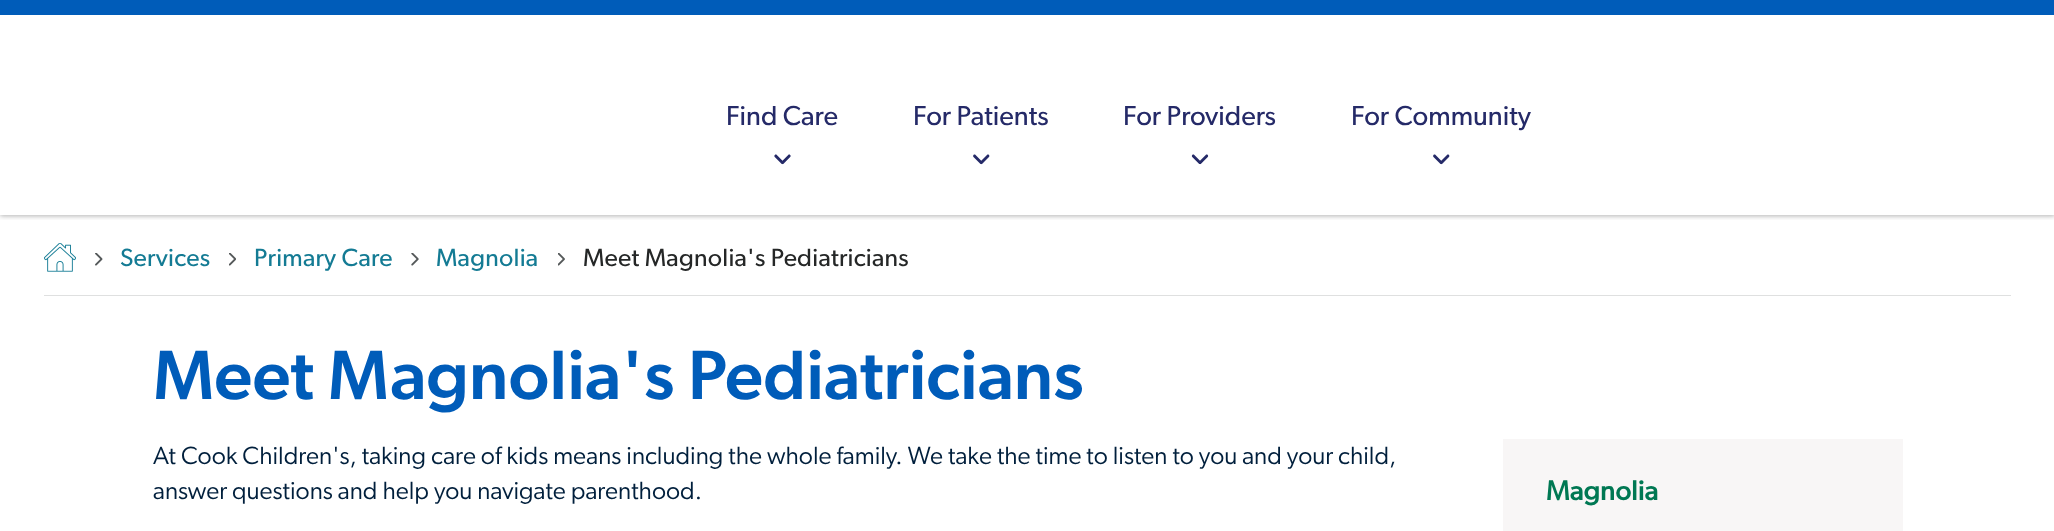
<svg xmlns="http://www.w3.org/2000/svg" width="2054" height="531">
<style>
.a{font:27.5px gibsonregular;fill:#252a68}
.b{font:25px gibsonregular;letter-spacing:0.25px;fill:#147b94}
.c{font:25px gibsonregular;letter-spacing:0.25px;fill:#252727}
.d{font:500 70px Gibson;fill:#005cb9}
.e{font:300 25px Gibson;fill:#001f3c}
.f{font:bold 27.5px gibsonregular;letter-spacing:0.25px;fill:#007853}
</style>
<defs>
<clipPath id="clip1"><path d="M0 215h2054v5H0z"/></clipPath>
</defs>
<rect width="100%" height="100%" fill="#fff"/>
<g clip-path="url(#clip1)">
<path fill="#0000004d" filter="blur(2.5px)" d="M0 1h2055v215H0z"/>
</g>
<path fill="#005cb9" d="M0 0h2054v15H0z"/>
<image href="1.png" x="774" y="154" width="17" height="11"/>
<image href="2.png" x="973" y="154" width="17" height="11"/>
<image href="3.png" x="1191" y="154" width="18" height="11"/>
<image href="2.png" x="1433" y="154" width="17" height="11"/>
<path fill="#dfe0e0" d="M44 295h1967v1H44z"/>
<image href="4.png" x="44" y="243" width="32" height="29"/>
<image href="5.png" x="95" y="253" width="8" height="13"/>
<image href="6.png" x="229" y="253" width="7" height="13"/>
<image href="7.png" x="411" y="253" width="8" height="13"/>
<image href="8.png" x="558" y="253" width="7" height="13"/>
<path fill="#f8f6f6" d="M1503 439h400v92H1503z"/>
<text class="a" x="726" y="125">Find Care</text>
<text class="a" x="913" y="125">For Patients</text>
<text class="a" x="1123" y="125">For Providers</text>
<text class="a" x="1351" y="125">For Community</text>
<text class="b" x="120" y="266">Services</text>
<text class="b" x="254" y="266">Primary Care</text>
<text class="b" x="436" y="266">Magnolia</text>
<text class="c" x="583" y="266">Meet Magnolia's Pediatricians</text>
<text class="d" x="153" y="399">Meet Magnolia's Pediatricians</text>
<text class="e" x="153" y="464">At Cook Children's, taking care of kids means including the whole family. We take the time to listen to you and your child,</text>
<text class="e" x="153" y="499">answer questions and help you navigate parenthood.</text>
<text class="f" x="1546" y="500">Magnolia</text>
</svg>
